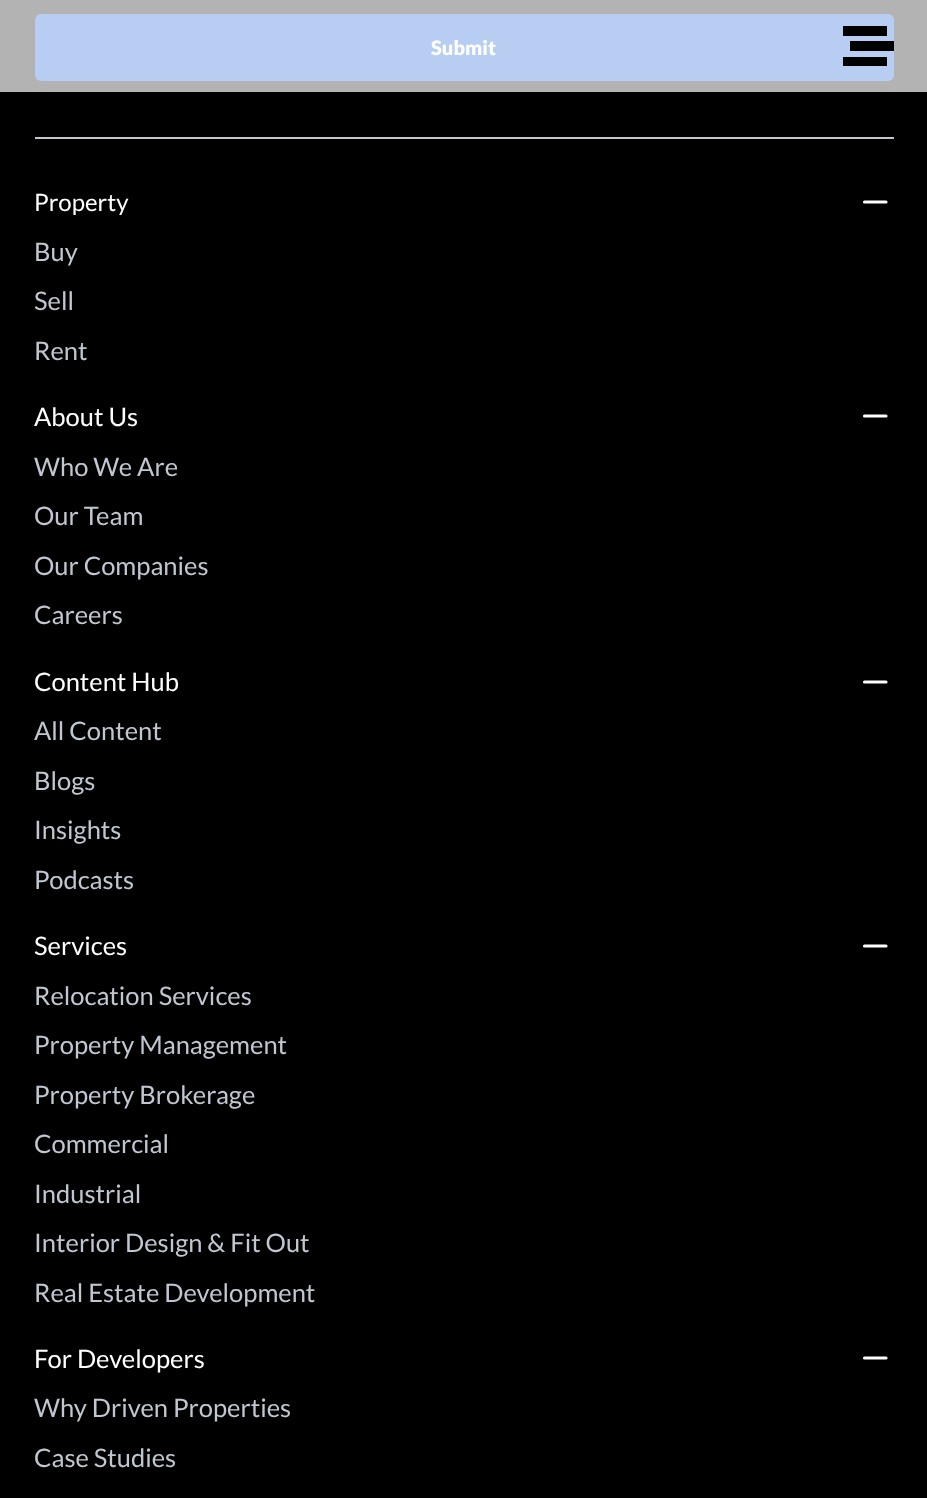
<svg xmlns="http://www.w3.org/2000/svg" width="927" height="1498">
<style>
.a{font:900 20px Lato;fill:#fff}
.b{font:24px Lato;fill:#fff}
.c{font:25.5px Lato;fill:#c0c7d1}
.d{font:25.5px Lato;fill:#fff}
</style>
<rect width="100%" height="100%" fill="#000"/>
<path fill="#b3b3b3" d="M0 0h927v92H0z"/>
<rect fill="#b7cdf1" x="35" y="14" width="859" height="67" rx="6"/>
<path fill="#c0c7d1" d="M35 137h859v2H35z"/>
<path fill="none" stroke="#fff" stroke-width="3.1" stroke-linecap="round" stroke-linejoin="round" d="M864.5 202h21.5"/>
<path fill="none" stroke="#fff" stroke-width="3.1" stroke-linecap="round" stroke-linejoin="round" d="M864.5 416h21.5"/>
<path fill="none" stroke="#fff" stroke-width="3.1" stroke-linecap="round" stroke-linejoin="round" d="M864.5 682h21.5"/>
<path fill="none" stroke="#fff" stroke-width="3.1" stroke-linecap="round" stroke-linejoin="round" d="M864.5 946h21.5"/>
<path fill="none" stroke="#fff" stroke-width="3.1" stroke-linecap="round" stroke-linejoin="round" d="M864.5 1358h21.5"/>
<path fill="#000" d="M843 26h44v10H843z"/>
<path fill="#000" d="M843 57h44v9H843z"/>
<path fill="#000" d="M850 41h44v10H850z"/>
<text class="a" x="431" y="55">Submit</text>
<text class="b" x="34" y="211">Property</text>
<text class="c" x="34" y="261">Buy</text>
<text class="c" x="34" y="310">Sell</text>
<text class="c" x="34" y="360">Rent</text>
<text class="d" x="34" y="426">About Us</text>
<text class="c" x="34" y="476">Who We Are</text>
<text class="c" x="34" y="525">Our Team</text>
<text class="c" x="34" y="575">Our Companies</text>
<text class="c" x="34" y="624">Careers</text>
<text class="d" x="34" y="691">Content Hub</text>
<text class="c" x="34" y="740">All Content</text>
<text class="c" x="34" y="790">Blogs</text>
<text class="c" x="34" y="839">Insights</text>
<text class="c" x="34" y="889">Podcasts</text>
<text class="d" x="34" y="955">Services</text>
<text class="c" x="34" y="1005">Relocation Services</text>
<text class="c" x="34" y="1054">Property Management</text>
<text class="c" x="34" y="1104">Property Brokerage</text>
<text class="c" x="34" y="1153">Commercial</text>
<text class="c" x="34" y="1203">Industrial</text>
<text class="c" x="34" y="1252">Interior Design &amp; Fit Out</text>
<text class="c" x="34" y="1302">Real Estate Development</text>
<text class="d" x="34" y="1368">For Developers</text>
<text class="c" x="34" y="1417">Why Driven Properties</text>
<text class="c" x="34" y="1467">Case Studies</text>
</svg>
